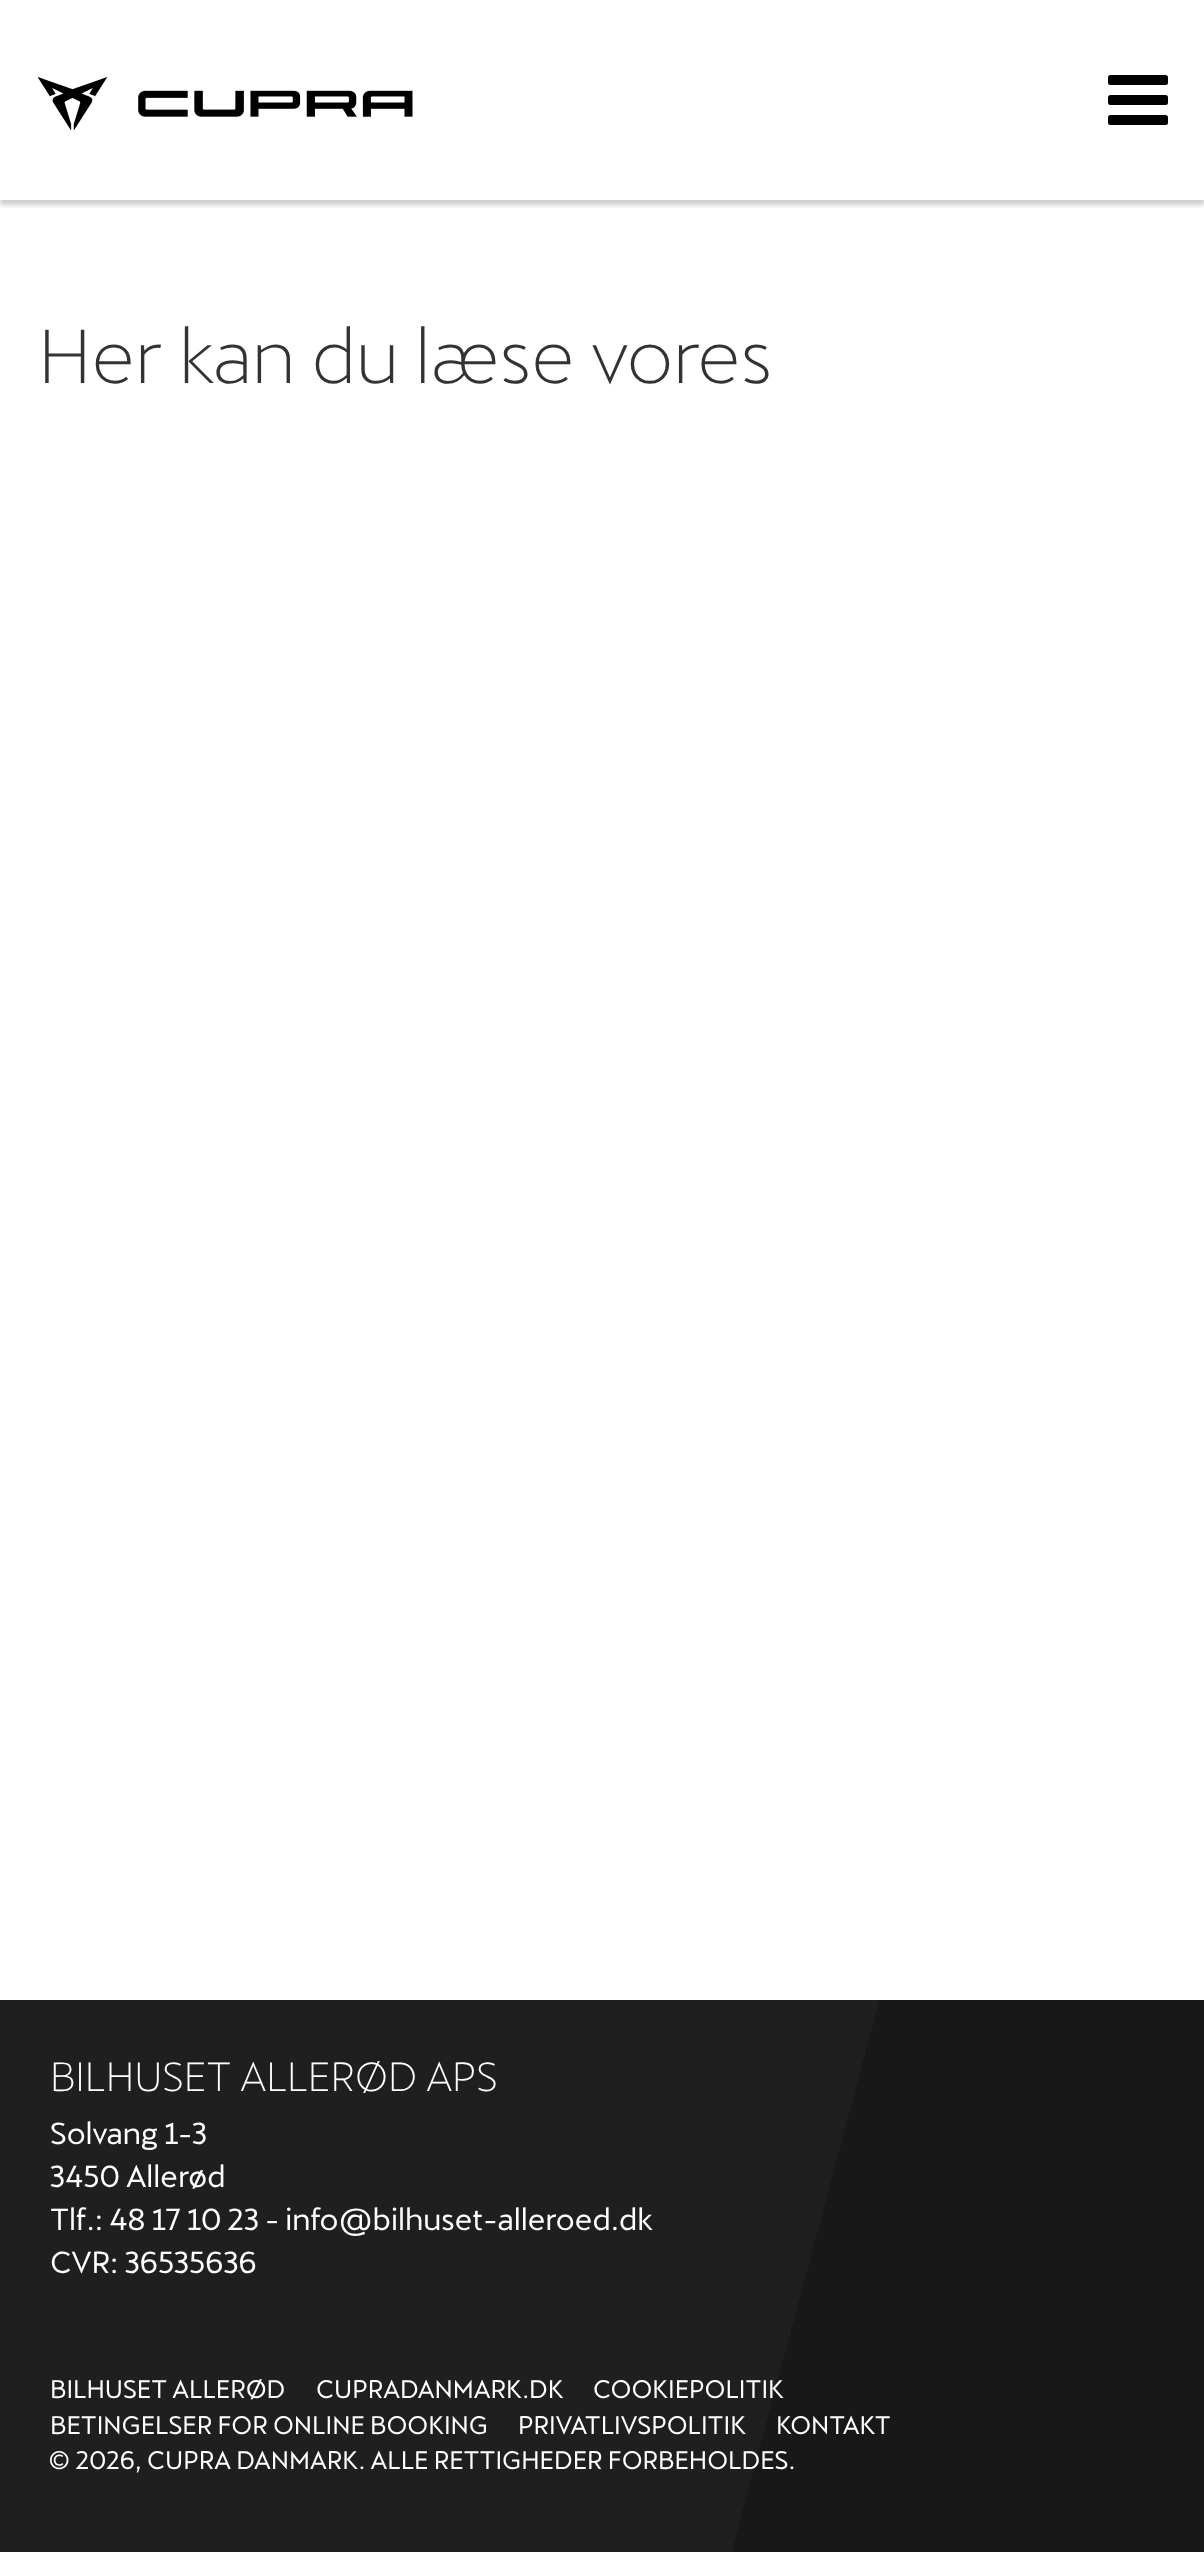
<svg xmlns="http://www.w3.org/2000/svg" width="1204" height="2552">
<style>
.a{font:300 75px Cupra;fill:#333}
.b{font:300 40px Cupra;fill:#fff}
.c{font:30px Cupra;fill:#fff}
.d{font:25px Cupra;fill:#fff}
</style>
<defs>
<clipPath id="clip1"><path d="M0 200h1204v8H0z"/></clipPath>
<linearGradient id="g1" gradientUnits="userSpaceOnUse" x1="-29" y1="2107" x2="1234" y2="2445"><stop offset="0.65" stop-color="#1f1f1f"/><stop offset="0.65" stop-color="#181818"/></linearGradient>
</defs>
<rect width="100%" height="100%" fill="#fff"/>
<g clip-path="url(#clip1)">
<path fill="#00000033" filter="blur(2.5px)" d="M0 5h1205v200H0z"/>
</g>
<image href="1.png" x="38" y="77" width="375" height="54"/>
<rect fill="#000" x="1108" y="75" width="60" height="10" rx="2.5"/>
<rect fill="#000" x="1108" y="95" width="60" height="10" rx="2.5"/>
<rect fill="#000" x="1108" y="115" width="60" height="10" rx="2.5"/>
<path fill="#fff" d="M38 208h1130v1H38z"/>
<path fill="url(#g1)" d="M0 2000h1204v552H0z"/>
<text class="a" x="38" y="383">Her kan du læse vores</text>
<text class="b" x="50" y="2091">BILHUSET ALLERØD APS</text>
<text class="c" x="50" y="2144">Solvang 1-3</text>
<text class="c" x="50" y="2187">3450 Allerød</text>
<text class="c" x="50" y="2230">Tlf.: 48 17 10 23 - info@bilhuset-alleroed.dk</text>
<text class="c" x="50" y="2273">CVR: 36535636</text>
<text class="d" x="50" y="2398">BILHUSET ALLERØD</text>
<text class="d" x="316" y="2398">CUPRADANMARK.DK</text>
<text class="d" x="593" y="2398">COOKIEPOLITIK</text>
<text class="d" x="50" y="2434">BETINGELSER FOR ONLINE BOOKING</text>
<text class="d" x="518" y="2434">PRIVATLIVSPOLITIK</text>
<text class="d" x="776" y="2434">KONTAKT</text>
<text class="d" x="48" y="2469">© 2026, CUPRA DANMARK. ALLE RETTIGHEDER FORBEHOLDES.</text>
</svg>
